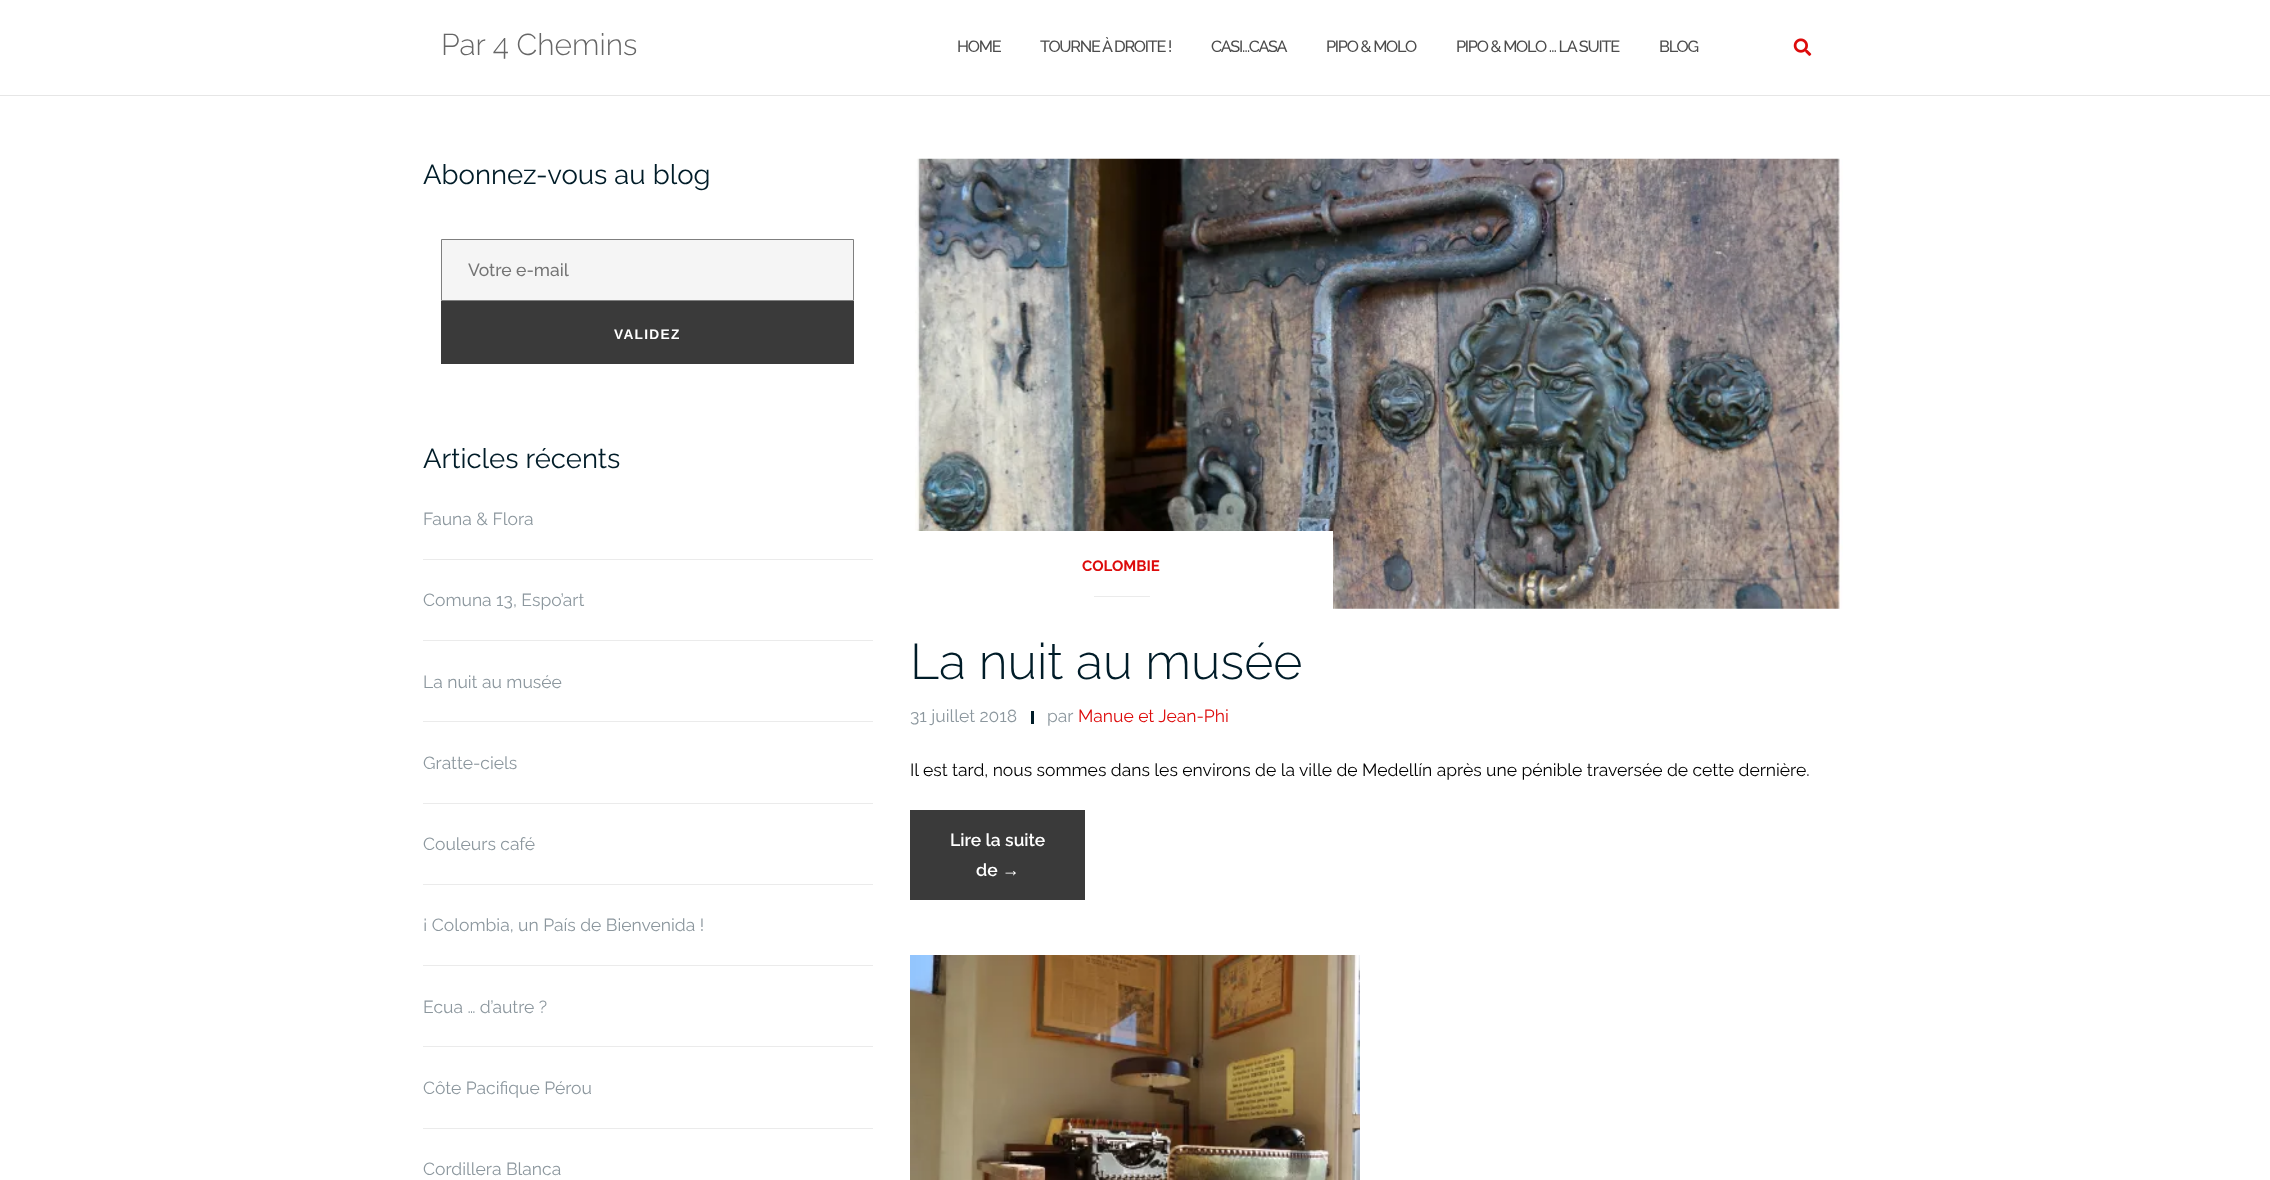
<svg xmlns="http://www.w3.org/2000/svg" width="2270" height="1180">
<style>
.a{font:300 30px Raleway;fill:#666}
.b{font:500 16.25px Raleway;letter-spacing:-1.25px;fill:#4c4c4c}
.c{font:27.5px Raleway;fill:#001c28}
.d{font:500 17.5px Raleway;fill:#757575}
.e{font:bold 13.75px Liberation Sans;letter-spacing:1.25px;fill:#fff}
.f{font:17.5px Raleway;fill:#8c979e}
.g{font:bold 15px Raleway;fill:#dd0b0b}
.h{font:300 50px Raleway;fill:#001c28}
.i{font:17.5px Raleway;fill:#dd0b0b}
.j{font:17.5px Raleway;fill:#000}
.k{font:600 17.5px Raleway;fill:#fff}
.l{font:17.5px Liberation Sans;fill:#fff}
</style>
<rect width="100%" height="100%" fill="#fff"/>
<path fill="#e6e6e6" d="M0 95h2270v1H0z"/>
<image href="1.png" x="1793" y="38" width="19" height="18"/>
<path fill="#f5f5f5" stroke="#7f7f7f" d="M441.5 239.5h412v61H441.5z"/>
<path fill="#3a3a3a" d="M441 301h413v63H441z"/>
<path fill="#ebebeb" d="M423 559h450v1H423z"/>
<path fill="#ebebeb" d="M423 640h450v1H423z"/>
<path fill="#ebebeb" d="M423 721h450v1H423z"/>
<path fill="#ebebeb" d="M423 803h450v1H423z"/>
<path fill="#ebebeb" d="M423 884h450v1H423z"/>
<path fill="#ebebeb" d="M423 965h450v1H423z"/>
<path fill="#ebebeb" d="M423 1046h450v1H423z"/>
<path fill="#ebebeb" d="M423 1128h450v1H423z"/>
<image href="2.png" x="915" y="158" width="928" height="451"/>
<path fill="#fff" d="M915 531h418v78H915z"/>
<path fill="#ebebeb" d="M1094 596h56v1H1094z"/>
<path fill="#001c28" d="M1031 711h3v13H1031z"/>
<path fill="#3a3a3a" d="M910 810h175v90H910z"/>
<image href="3.png" x="910" y="955" width="450" height="225"/>
<text class="a" x="441" y="55">Par 4 Chemins</text>
<text class="b" x="957" y="52">HOME</text>
<text class="b" x="1040" y="52">TOURNE À DROITE !</text>
<text class="b" x="1211" y="52">CASI…CASA</text>
<text class="b" x="1326" y="52">PIPO &amp; MOLO</text>
<text class="b" x="1456" y="52">PIPO &amp; MOLO … LA SUITE</text>
<text class="b" x="1659" y="52">BLOG</text>
<text class="c" x="423" y="184">Abonnez-vous au blog</text>
<text class="d" x="468" y="276">Votre e-mail</text>
<text class="e" x="614" y="339">VALIDEZ</text>
<text class="c" x="423" y="468">Articles récents</text>
<text class="f" x="423" y="525">Fauna &amp; Flora</text>
<text class="f" x="423" y="606">Comuna 13, Espo’art</text>
<text class="f" x="423" y="688">La nuit au musée</text>
<text class="f" x="423" y="769">Gratte-ciels</text>
<text class="f" x="423" y="850">Couleurs café</text>
<text class="f" x="423" y="931">¡ Colombia, un País de Bienvenida !</text>
<text class="f" x="423" y="1013">Ecua … d’autre ?</text>
<text class="f" x="423" y="1094">Côte Pacifique Pérou</text>
<text class="f" x="423" y="1175">Cordillera Blanca</text>
<text class="g" x="1082" y="571">COLOMBIE</text>
<text class="h" x="910" y="679">La nuit au musée</text>
<text class="f" x="910" y="722">31 juillet 2018</text>
<text class="f" x="1047" y="722">par</text>
<text class="i" x="1078" y="722">Manue et Jean-Phi</text>
<text class="j" x="910" y="776">Il est tard, nous sommes dans les environs de la ville de Medellín après une pénible traversée de cette dernière.</text>
<text class="k" x="950" y="846">Lire la suite</text>
<text class="k" x="976" y="876">de</text>
<text class="l" x="1002" y="876">→</text>
</svg>
